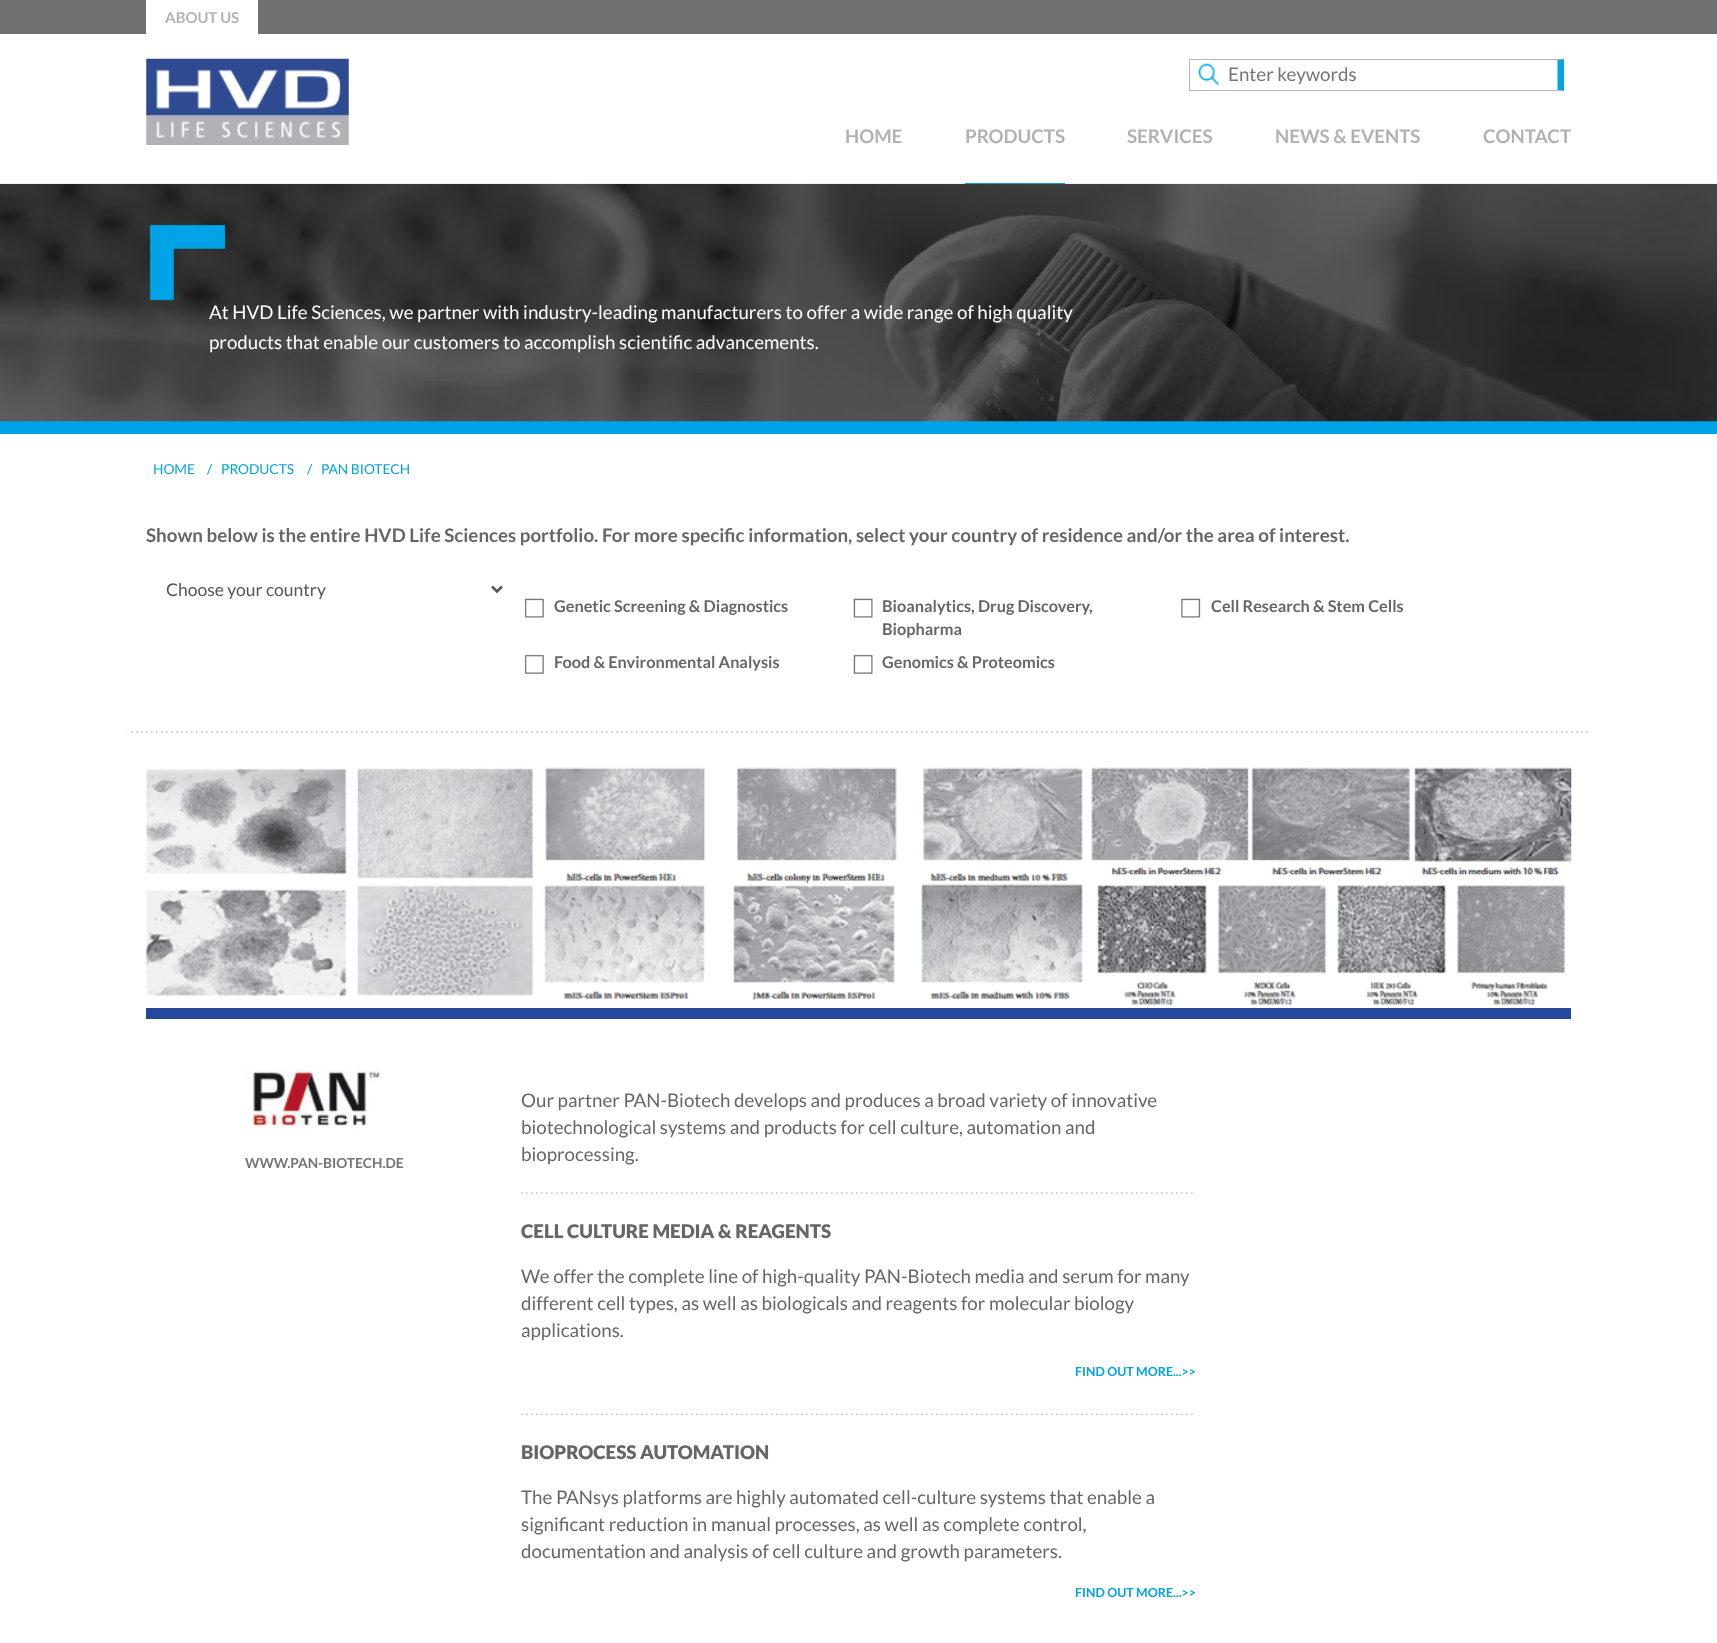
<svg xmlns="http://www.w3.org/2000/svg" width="1717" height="1643">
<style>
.a{font:bold 15px Lato;fill:#b2b2b6}
.b{font:18.75px Lato;fill:#757575}
.c{font:bold 18.75px Lato;fill:#b2b2b6}
.d{font:18.75px Lato;fill:#fff}
.e{font:13.75px Lato;fill:#00a3e5}
.f{font:bold 18.75px Lato;fill:#666}
.g{font:17.5px Lato;fill:#555}
.h{font:bold 16.25px Lato;fill:#666}
.i{font:bold 13.75px Lato;fill:#757575}
.j{font:18.75px Lato;fill:#666}
.k{font:900 18.75px Lato;fill:#666}
.l{font:bold 12.5px Lato;fill:#00a3e5}
</style>
<rect width="100%" height="100%" fill="#fff"/>
<path fill="#707070" d="M0 0h1717v34H0z"/>
<path fill="#fff" d="M146 0h112v34H146z"/>
<image href="1.png" x="146" y="58" width="203" height="87"/>
<image href="2.png" x="1198" y="63" width="21" height="23"/>
<path fill="#bab5ba" d="M1189 59h375l-6 1h-368z"/>
<path fill="#00a3e5" d="M1564 59v32l-6.5-1v-30z"/>
<path fill="#bab5ba" d="M1564 91h-375l1-1h368z"/>
<path fill="#bab5ba" d="M1189 59h1v32H1189z"/>
<path fill="#00a3e5" d="M965 183h100v1H965z"/>
<path fill="#00a3e5" d="M0 421h1717v13H0z"/>
<image href="3.png" x="0" y="183" width="1717" height="239"/>
<image href="4.png" x="149" y="224" width="77" height="77"/>
<image href="5.png" x="127" y="731" width="1461" height="2"/>
<path fill="none" stroke="#555" stroke-width="2.5" d="M492 586.5l5 5l5-5"/>
<image href="6.png" x="524" y="598" width="20" height="20"/>
<image href="7.png" x="853" y="598" width="20" height="20"/>
<image href="8.png" x="1181" y="598" width="20" height="20"/>
<image href="9.png" x="524" y="654" width="20" height="20"/>
<image href="10.png" x="853" y="654" width="20" height="20"/>
<path fill="#26489b" d="M146 1008h1425v11H146z"/>
<image href="11.png" x="146" y="767" width="1426" height="239"/>
<image href="12.png" x="245" y="1069" width="135" height="60"/>
<image href="13.png" x="521" y="1192" width="676" height="2"/>
<image href="14.png" x="521" y="1413" width="676" height="2"/>
<text class="a" x="165" y="23">ABOUT US</text>
<text class="b" x="1228" y="81">Enter keywords</text>
<text class="c" x="845" y="143">HOME</text>
<text class="c" x="965" y="143">PRODUCTS</text>
<text class="c" x="1127" y="143">SERVICES</text>
<text class="c" x="1275" y="143">NEWS &amp; EVENTS</text>
<text class="c" x="1483" y="143">CONTACT</text>
<text class="d" x="209" y="319">At HVD Life Sciences, we partner with industry-leading manufacturers to offer a wide range of high quality</text>
<text class="d" x="209" y="349">products that enable our customers to accomplish scientific advancements.</text>
<text class="e" x="153" y="474">HOME</text>
<text class="e" x="207" y="474">/</text>
<text class="e" x="221" y="474">PRODUCTS</text>
<text class="e" x="307" y="474">/</text>
<text class="e" x="321" y="474">PAN BIOTECH</text>
<text class="f" x="146" y="542">Shown below is the entire HVD Life Sciences portfolio. For more specific information, select your country of residence and/or the area of interest.</text>
<text class="g" x="166" y="596">Choose your country</text>
<text class="h" x="554" y="612">Genetic Screening &amp; Diagnostics</text>
<text class="h" x="882" y="612">Bioanalytics, Drug Discovery,</text>
<text class="h" x="882" y="635">Biopharma</text>
<text class="h" x="1211" y="612">Cell Research &amp; Stem Cells</text>
<text class="h" x="554" y="668">Food &amp; Environmental Analysis</text>
<text class="h" x="882" y="668">Genomics &amp; Proteomics</text>
<text class="i" x="245" y="1168">WWW.PAN-BIOTECH.DE</text>
<text class="j" x="521" y="1107">Our partner PAN-Biotech develops and produces a broad variety of innovative</text>
<text class="j" x="521" y="1134">biotechnological systems and products for cell culture, automation and</text>
<text class="j" x="521" y="1161">bioprocessing.</text>
<text class="k" x="521" y="1238">CELL CULTURE MEDIA &amp; REAGENTS</text>
<text class="j" x="521" y="1283">We offer the complete line of high-quality PAN-Biotech media and serum for many</text>
<text class="j" x="521" y="1310">different cell types, as well as biologicals and reagents for molecular biology</text>
<text class="j" x="521" y="1337">applications.</text>
<text class="l" x="1075" y="1376">FIND OUT MORE...&gt;&gt;</text>
<text class="k" x="521" y="1459">BIOPROCESS AUTOMATION</text>
<text class="j" x="521" y="1504">The PANsys platforms are highly automated cell-culture systems that enable a</text>
<text class="j" x="521" y="1531">significant reduction in manual processes, as well as complete control,</text>
<text class="j" x="521" y="1558">documentation and analysis of cell culture and growth parameters.</text>
<text class="l" x="1075" y="1597">FIND OUT MORE...&gt;&gt;</text>
</svg>
